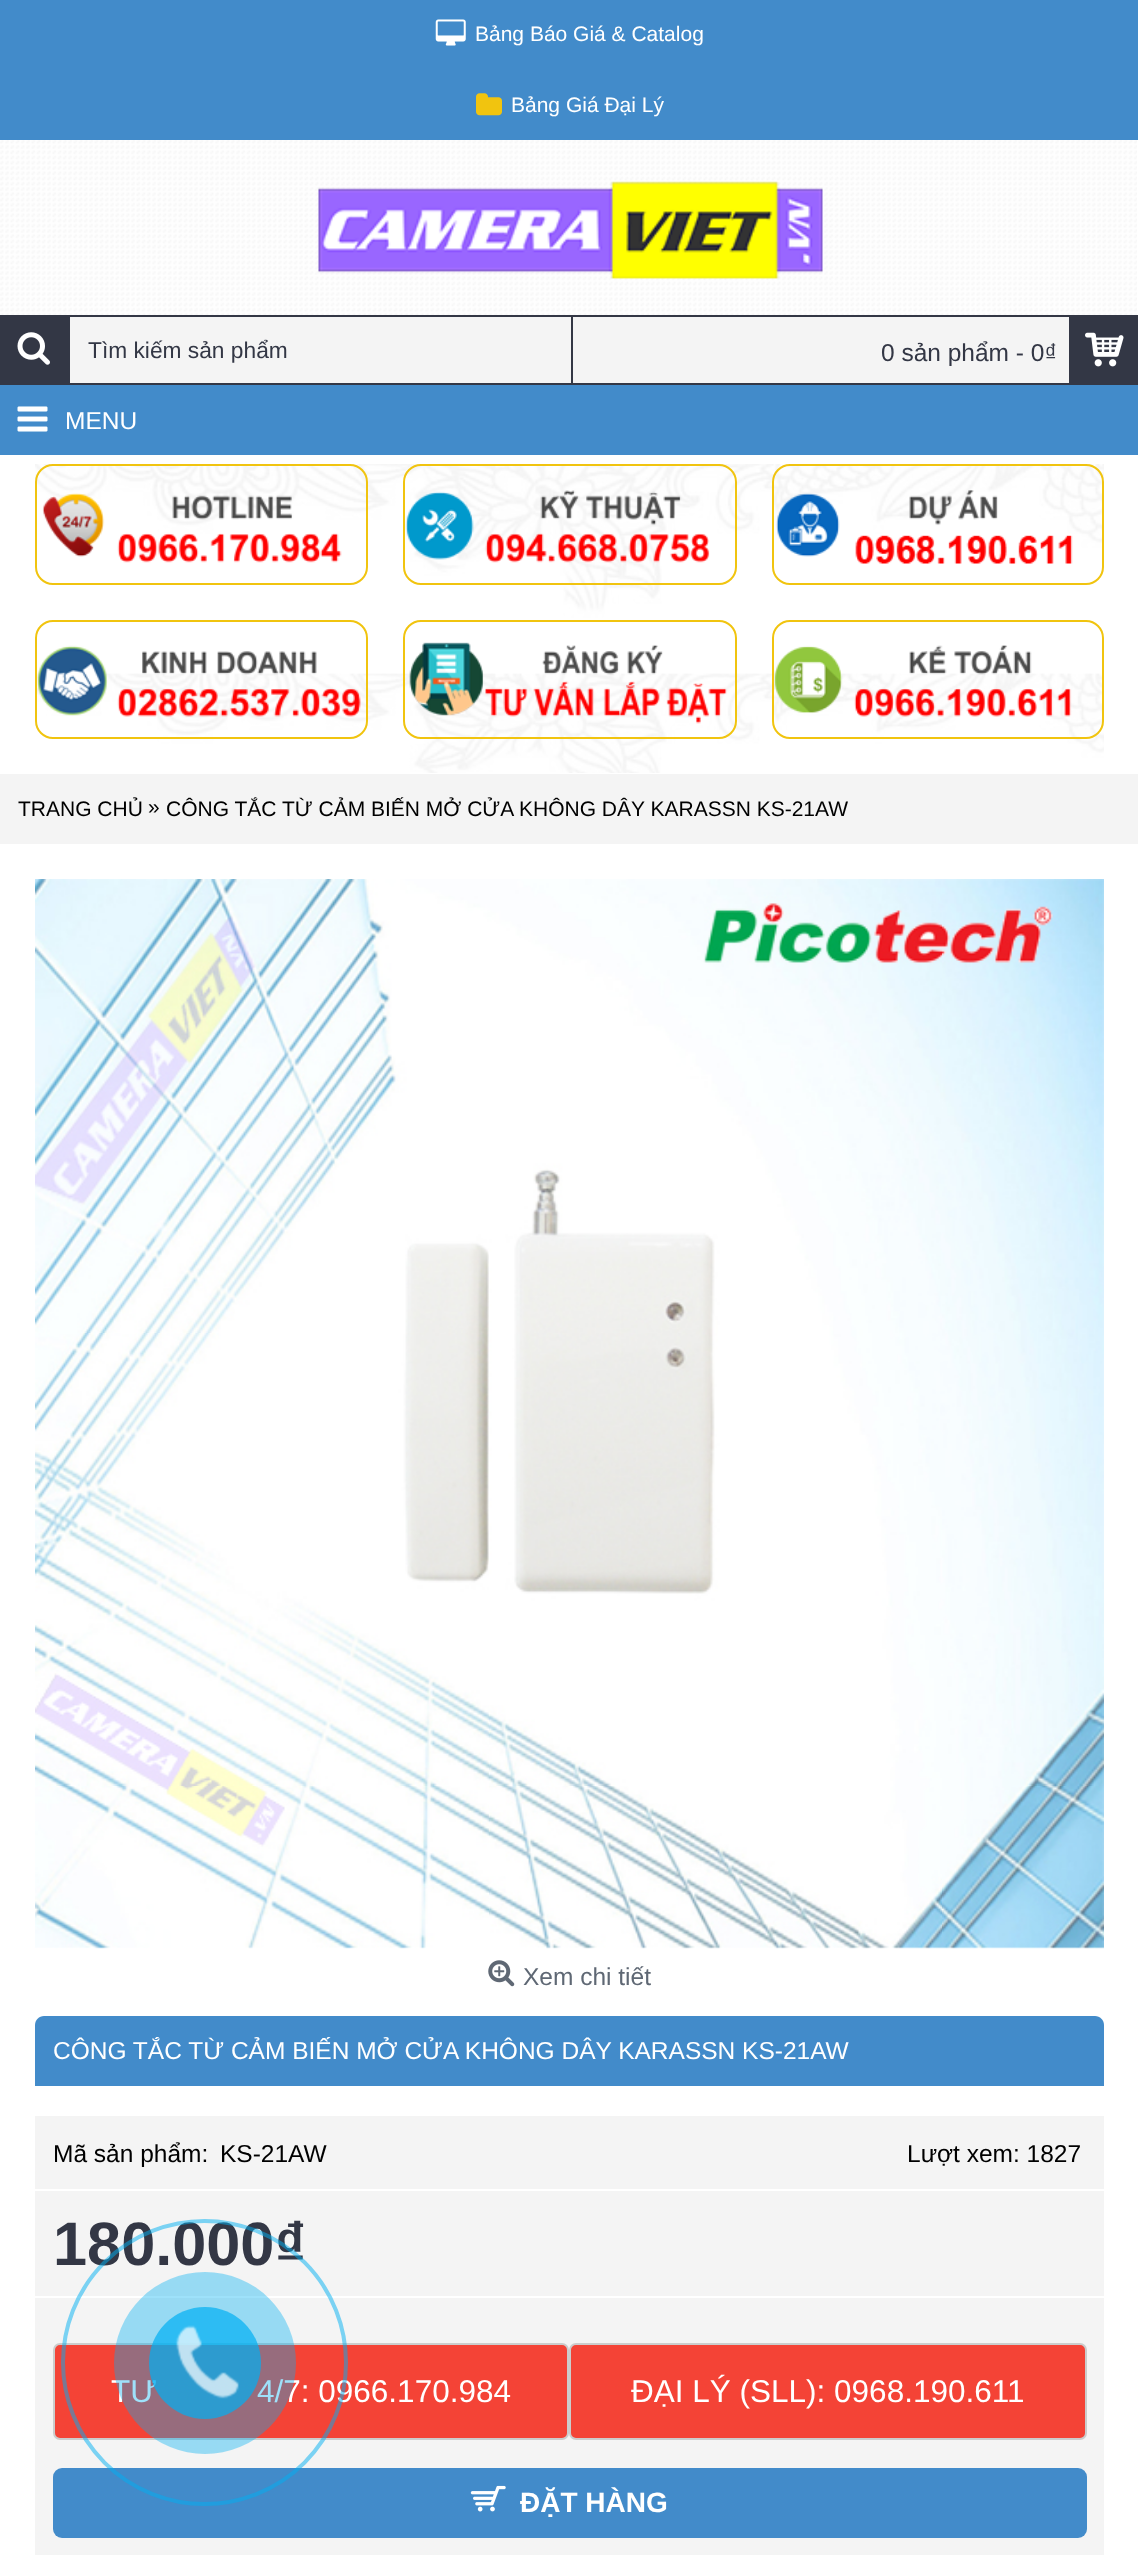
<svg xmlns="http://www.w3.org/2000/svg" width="1138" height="2559">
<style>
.a{font:21px Liberation Sans;fill:#fff}
.b{font:22.75px Liberation Sans;fill:#333745}
.c{font:24.5px Liberation Sans;fill:#333745}
.d{font:24.5px Liberation Sans;fill:#fff}
.e{font:21px Liberation Sans;fill:#000}
.f{font:24.5px Liberation Sans;fill:#5f6874}
.g{font:24.5px Liberation Sans;fill:#000}
.h{font:bold 61.25px Liberation Sans;fill:#333745}
.i{font:31.5px Liberation Sans;fill:#fff}
.j{font:bold 28px Liberation Sans;fill:#fff}
</style>
<rect width="100%" height="100%" fill="#fff"/>
<path fill="#428bca" d="M0 0h1138v140H0z"/>
<image href="1.png" x="435" y="19" width="31" height="27"/>
<image href="2.png" x="476" y="93" width="26" height="23"/>
<image href="7.png" x="0" y="140" width="1137" height="175"/>
<image href="3.png" x="318" y="181" width="505" height="98"/>
<path fill="#333745" d="M0 315h70v70H0z"/>
<image href="4.png" x="17" y="332" width="33" height="33"/>
<path fill="#f4f4f4" d="M70 317h501v66H70z"/>
<path fill="#333745" d="M70 315h1068v2H70z"/>
<path fill="#333745" d="M70 383h999v2H70z"/>
<path fill="#f4f4f4" d="M573 317h496v66H573z"/>
<path fill="#333745" d="M571 315h2v70H571z"/>
<path fill="#333745" d="M1069 317h69v68H1069z"/>
<image href="5.png" x="1085" y="332" width="39" height="35"/>
<path fill="#428bca" d="M0 385h1138v70H0z"/>
<image href="6.png" x="17" y="406" width="31" height="26"/>
<image href="8.png" x="35" y="464" width="1069" height="309"/>
<rect fill="none" stroke="#f1c40f" stroke-width="2" x="36" y="465" width="331" height="119" rx="17"/>
<image href="9.png" x="42" y="493" width="300" height="70"/>
<rect fill="none" stroke="#f1c40f" stroke-width="2" x="404" y="465" width="332" height="119" rx="17"/>
<image href="10.png" x="405" y="490" width="305" height="73"/>
<rect fill="none" stroke="#f1c40f" stroke-width="2" x="773" y="465" width="330" height="119" rx="17"/>
<image href="11.png" x="776" y="490" width="297" height="74"/>
<rect fill="none" stroke="#f1c40f" stroke-width="2" x="36" y="621" width="331" height="117" rx="17"/>
<image href="12.png" x="37" y="645" width="324" height="72"/>
<rect fill="none" stroke="#f1c40f" stroke-width="2" x="404" y="621" width="332" height="117" rx="17"/>
<image href="13.png" x="409" y="642" width="318" height="82"/>
<rect fill="none" stroke="#f1c40f" stroke-width="2" x="773" y="621" width="330" height="117" rx="17"/>
<image href="14.png" x="773" y="645" width="299" height="72"/>
<path fill="#f4f4f4" d="M0 774h1138v70H0z"/>
<image href="15.png" x="35" y="879" width="1069" height="1070"/>
<image href="16.png" x="488" y="1960" width="27" height="27"/>
<path fill="#428bca" d="M44 2016h1051c5 0 9 4 9 9v61h-1069v-61c0-5 4-9 9-9z"/>
<path fill="#f4f4f4" d="M35 2116h1069v73H35z"/>
<path fill="#f4f4f4" d="M35 2191h1069v105H35z"/>
<path fill="#f4f4f4" d="M35 2298h1069v257H35z"/>
<rect fill="#f44336" stroke="#ccc" stroke-width="2" x="54" y="2344" width="514" height="95" rx="6"/>
<rect fill="#f44336" stroke="#ccc" stroke-width="2" x="570" y="2344" width="516" height="95" rx="6"/>
<rect fill="#428bca" x="53" y="2468" width="1034" height="70" rx="9"/>
<image href="17.png" x="470" y="2485" width="36" height="27"/>
<text class="a" x="475" y="41">Bảng Báo Giá &amp; Catalog</text>
<text class="a" x="511" y="112">Bảng Giá Đại Lý</text>
<text class="b" x="88" y="358">Tìm kiếm sản phẩm</text>
<text class="c" x="881" y="361">0 sản phẩm - 0₫</text>
<text class="d" x="65" y="429">MENU</text>
<text class="e" x="18" y="816">TRANG CHỦ</text>
<text class="e" x="148" y="814">»</text>
<text class="e" x="166" y="816">CÔNG TẮC TỪ CẢM BIẾN MỞ CỬA KHÔNG DÂY KARASSN KS-21AW</text>
<text class="f" x="523" y="1985">Xem chi tiết</text>
<text class="d" x="53" y="2059">CÔNG TẮC TỪ CẢM BIẾN MỞ CỬA KHÔNG DÂY KARASSN KS-21AW</text>
<text class="g" x="53" y="2162">Mã sản phẩm:</text>
<text class="g" x="220" y="2162">KS-21AW</text>
<text class="g" x="907" y="2162">Lượt xem: 1827</text>
<text class="h" x="53" y="2265">180.000₫</text>
<text class="i" x="111" y="2402">TƯ</text>
<text class="i" x="257" y="2402">4/7: 0966.170.984</text>
<text class="i" x="631" y="2402">ĐẠI LÝ (SLL): 0968.190.611</text>
<text class="j" x="520" y="2512">ĐẶT HÀNG</text>
<circle fill="none" stroke="#00aff280" stroke-width="4" cx="204.5" cy="2362.5" r="141.5"/>
<circle fill="#00aff261" cx="205" cy="2363" r="91"/>
<circle fill="#00aff2b3" cx="205" cy="2363" r="56"/>
<image href="18.png" x="175" y="2325" width="64" height="74"/>
</svg>
